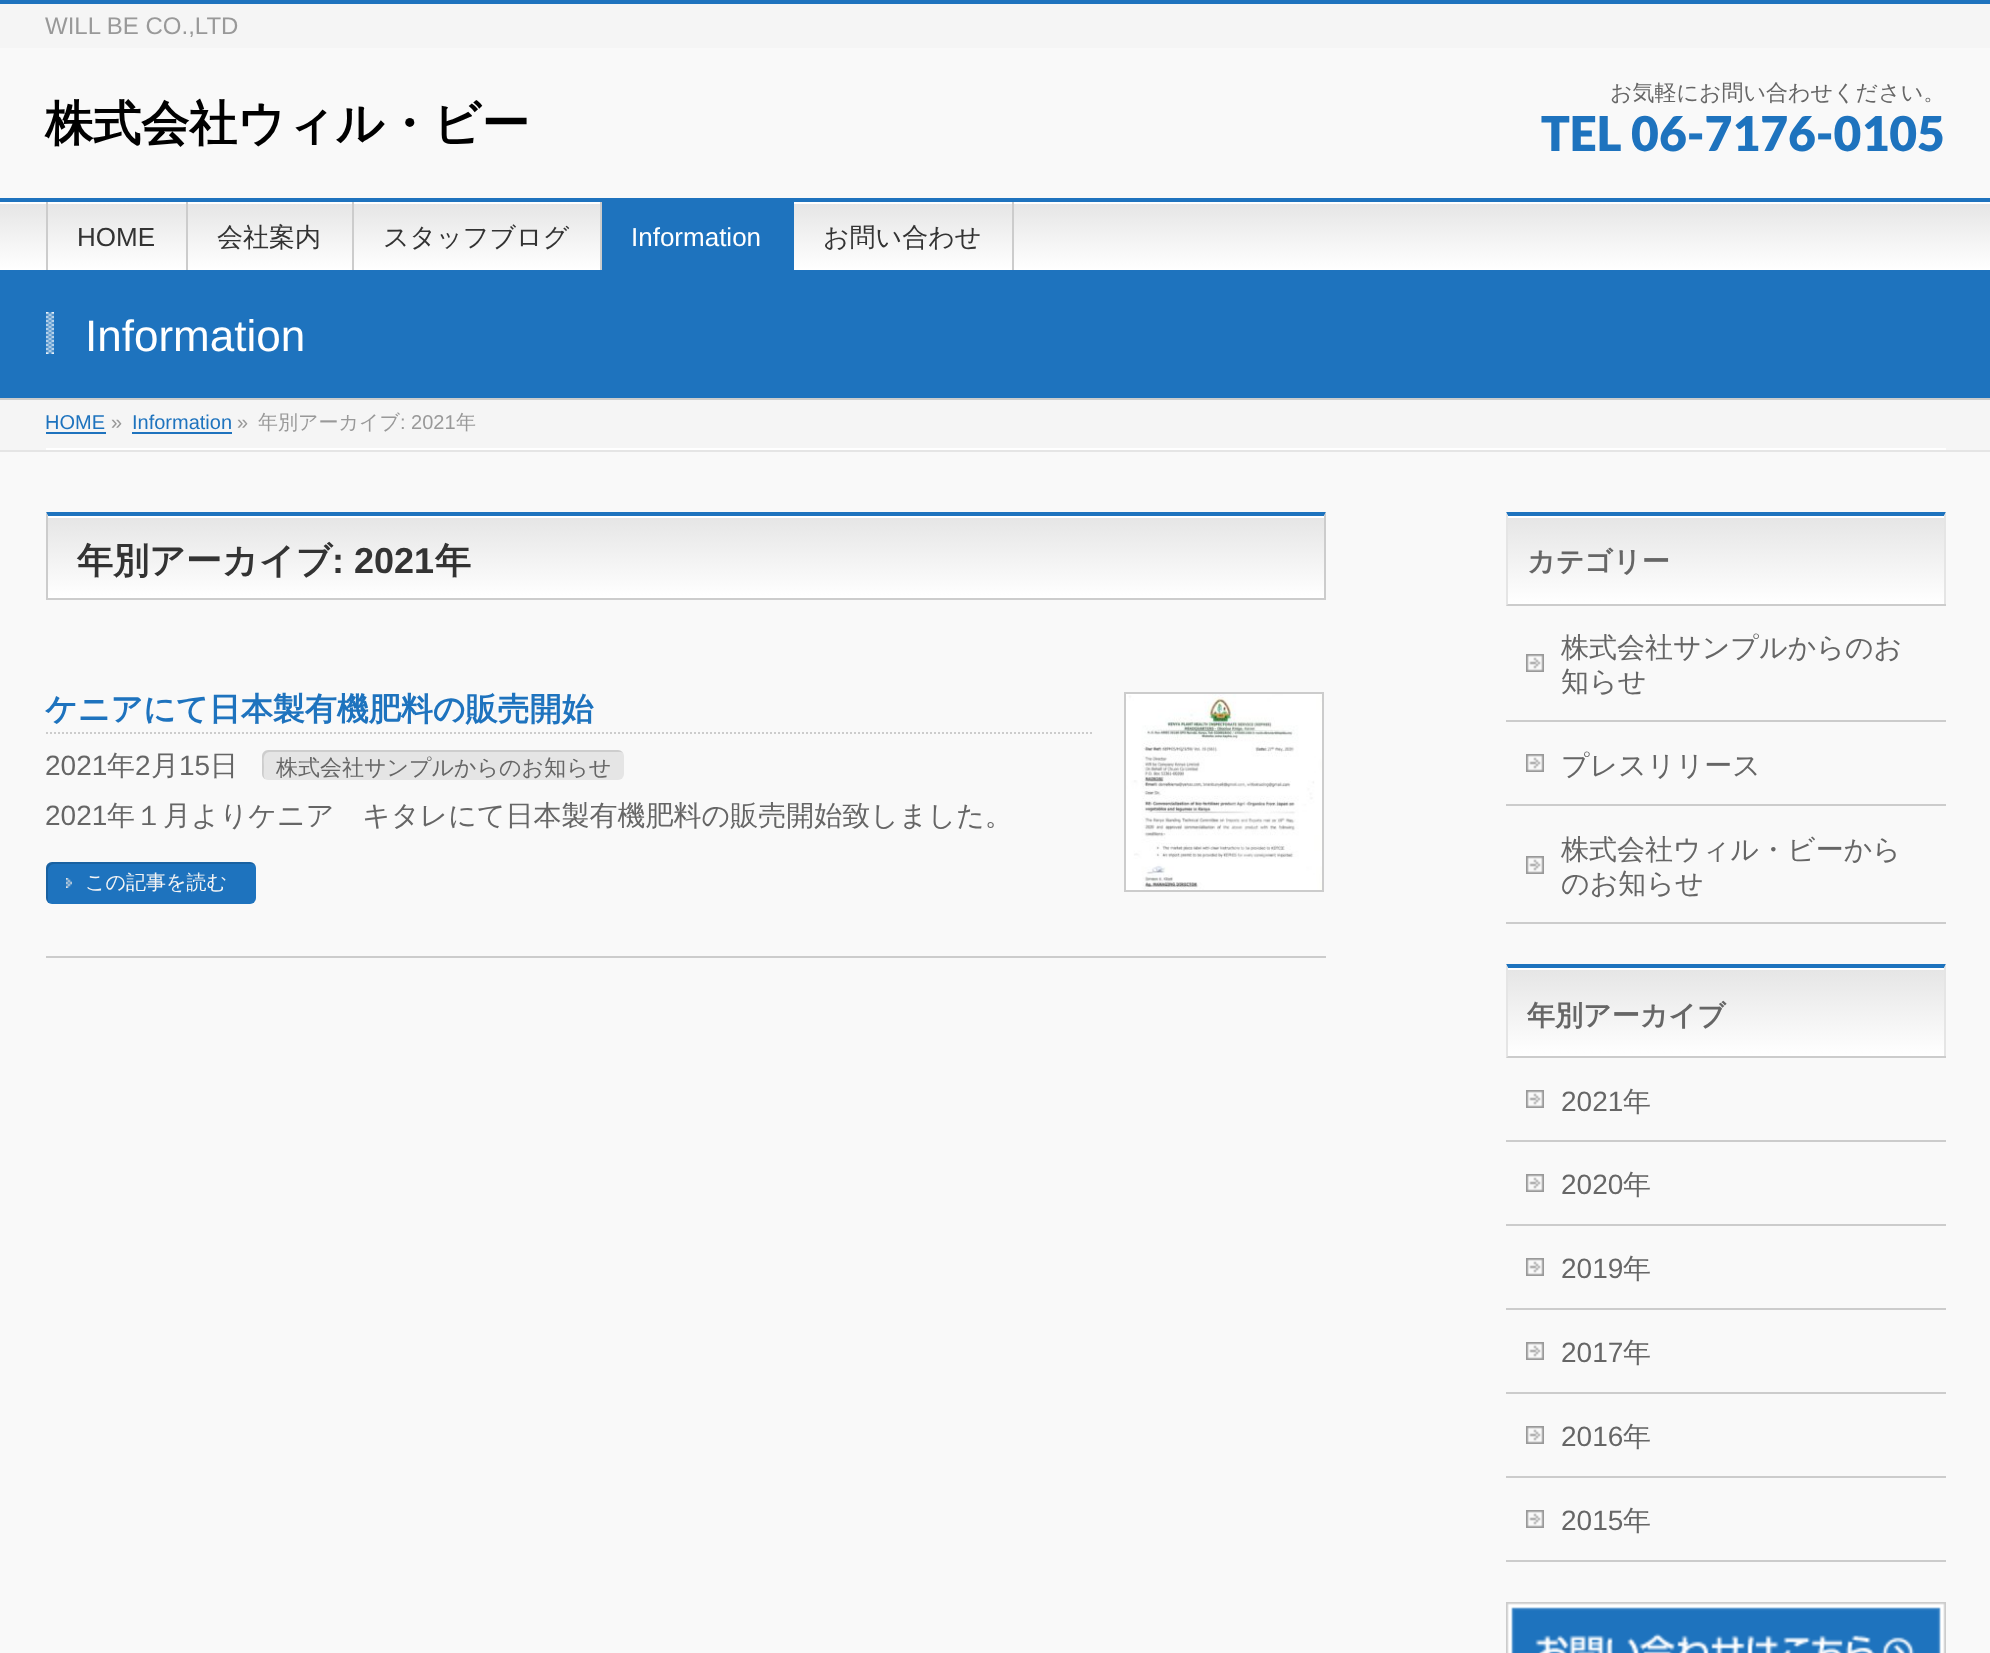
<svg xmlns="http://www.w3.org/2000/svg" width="1990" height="1653">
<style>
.a{font:24px Liberation Sans;fill:#999}
.b{font:bold 48px WenQuanYi Zen Hei;fill:#000}
.c{font:500 22px WenQuanYi Zen Hei;fill:#666}
.d{font:900 48px Lato;fill:#1e73be}
.e{font:26px Liberation Sans;fill:#333}
.f{font:500 26px WenQuanYi Zen Hei;fill:#333}
.g{font:26px Liberation Sans;fill:#fff}
.h{font:44px Liberation Sans;fill:#fff}
.i{font:20px Liberation Sans;fill:#1e73be}
.j{font:20px Liberation Sans;fill:#999}
.k{font:500 20px WenQuanYi Zen Hei;fill:#999}
.l{font:bold 36px WenQuanYi Zen Hei;fill:#333}
.m{font:bold 36px Liberation Sans;fill:#333}
.n{font:bold 32px WenQuanYi Zen Hei;fill:#1e73be}
.o{font:28px Liberation Sans;fill:#666}
.p{font:500 28px WenQuanYi Zen Hei;fill:#666}
.q{font:500 20px WenQuanYi Zen Hei;fill:#f5f5f5}
.r{font:bold 28px WenQuanYi Zen Hei;fill:#666}
</style>
<defs>
<linearGradient id="g1" gradientUnits="userSpaceOnUse" x1="995" y1="202" x2="995" y2="270"><stop offset="0" stop-color="#e5e5e5"/><stop offset="1" stop-color="#fff"/></linearGradient>
<linearGradient id="g2" gradientUnits="userSpaceOnUse" x1="48" y1="516" x2="48" y2="598"><stop offset="0" stop-color="#e5e5e5"/><stop offset="1" stop-color="#fff"/></linearGradient>
<linearGradient id="g3" gradientUnits="userSpaceOnUse" x1="1508" y1="516" x2="1508" y2="604"><stop offset="0" stop-color="#e5e5e5"/><stop offset="1" stop-color="#fff"/></linearGradient>
<linearGradient id="g4" gradientUnits="userSpaceOnUse" x1="1508" y1="968" x2="1508" y2="1056"><stop offset="0" stop-color="#e5e5e5"/><stop offset="1" stop-color="#fff"/></linearGradient>
</defs>
<rect width="100%" height="100%" fill="#f9f9f9"/>
<path fill="#f5f5f5" d="M0 4h1990v44H0z"/>
<path fill="#1e73be" d="M0 0h1990v4H0z"/>
<path fill="url(#g1)" d="M0 204h1990v66H0z"/>
<path fill="#fff" d="M0 202h1990v2H0z"/>
<path fill="#1e73be" d="M0 198h1990v4H0z"/>
<path fill="#ccc" d="M46 202h2v68H46z"/>
<path fill="#ccc" d="M186 202h2v68H186z"/>
<path fill="#ccc" d="M352 202h2v68H352z"/>
<path fill="#ccc" d="M600 202h2v68H600z"/>
<path fill="#1e73be" d="M602 202h192v68H602z"/>
<path fill="#ccc" d="M1012 202h2v68H1012z"/>
<path fill="#1e73be" d="M0 270h1990v128H0z"/>
<path fill="#ccc" d="M0 398h1990v2H0z"/>
<image href="1.png" x="46" y="312" width="8" height="42"/>
<path fill="#f5f5f5" d="M0 400h1990v50H0z"/>
<path fill="#e5e5e5" d="M0 450h1990v2H0z"/>
<path fill="#fff" d="M46 448h1900v2H46z"/>
<path fill="#1e73be" d="M46 432h60v2H46z"/>
<path fill="#1e73be" d="M132 432h100v2H132z"/>
<path fill="url(#g2)" d="M48 518h1276v80H48z"/>
<path fill="#fff" d="M48 516h1276v2H48z"/>
<path fill="#1e73be" d="M46 512h1280l-2 4h-1276z"/>
<path fill="#ccc" d="M1326 512v88l-2-2v-82z"/>
<path fill="#ccc" d="M46 598h1280v2H46z"/>
<path fill="#ccc" d="M46 600v-88l2 4v82z"/>
<path fill="#ccc" d="M46 956h1280v2H46z"/>
<path fill="none" stroke="#ccc" stroke-width="2" stroke-dasharray="2 2" d="M46 733h1046"/>
<rect fill="#e5e5e5" x="262" y="750" width="362" height="30" rx="6"/>
<path fill="#0000001a" d="M270 752h350c1 0 2 0 3 1c-1-2-3-3-5-3h-350c-3 0-6 3-6 6v18c0 2 1 4 3 5c-2-3-1-8-1-12c0-5-2-15 6-15z"/>
<rect fill="#1e73be" x="46" y="862" width="210" height="42" rx="6"/>
<image href="2.png" x="66" y="878" width="6" height="10"/>
<path fill="#00000026" d="M54 864h198c1 0 2 0 3 1c-1-2-3-3-5-3h-198c-3 0-6 3-6 6v30c0 2 1 4 3 5c-1-1-1-2-1-3v-30c0-3 3-6 6-6z"/>
<path fill="none" stroke="#ccc" stroke-width="2" d="M1125 693h198v198H1125z"/>
<image href="3.png" x="1126" y="694" width="196" height="196"/>
<path fill="url(#g3)" d="M1508 518h436v86H1508z"/>
<path fill="#fff" d="M1508 516h436v2H1508z"/>
<path fill="#1e73be" d="M1506 512h440l-2 4h-436z"/>
<path fill="#e5e5e5" d="M1946 512v94l-2-2v-88z"/>
<path fill="#ccc" d="M1506 604h440v2H1506z"/>
<path fill="#e5e5e5" d="M1506 606v-94l2 4v88z"/>
<path fill="#ccc" d="M1506 720h440v2H1506z"/>
<image href="4.png" x="1526" y="654" width="18" height="18"/>
<path fill="#ccc" d="M1506 804h440v2H1506z"/>
<image href="4.png" x="1526" y="754" width="18" height="18"/>
<path fill="#ccc" d="M1506 922h440v2H1506z"/>
<image href="4.png" x="1526" y="856" width="18" height="18"/>
<path fill="url(#g4)" d="M1508 970h436v86H1508z"/>
<path fill="#fff" d="M1508 968h436v2H1508z"/>
<path fill="#1e73be" d="M1506 964h440l-2 4h-436z"/>
<path fill="#e5e5e5" d="M1946 964v94l-2-2v-88z"/>
<path fill="#ccc" d="M1506 1056h440v2H1506z"/>
<path fill="#e5e5e5" d="M1506 1058v-94l2 4v88z"/>
<path fill="#ccc" d="M1506 1140h440v2H1506z"/>
<image href="4.png" x="1526" y="1090" width="18" height="18"/>
<path fill="#ccc" d="M1506 1224h440v2H1506z"/>
<image href="4.png" x="1526" y="1174" width="18" height="18"/>
<path fill="#ccc" d="M1506 1308h440v2H1506z"/>
<image href="4.png" x="1526" y="1258" width="18" height="18"/>
<path fill="#ccc" d="M1506 1392h440v2H1506z"/>
<image href="4.png" x="1526" y="1342" width="18" height="18"/>
<path fill="#ccc" d="M1506 1476h440v2H1506z"/>
<image href="4.png" x="1526" y="1426" width="18" height="18"/>
<path fill="#ccc" d="M1506 1560h440v2H1506z"/>
<image href="4.png" x="1526" y="1510" width="18" height="18"/>
<path fill="#1e73be" d="M1511 1607h430v46H1511z"/>
<image href="5.png" x="1506" y="1602" width="440" height="51"/>
<text class="a" x="45" y="34">WILL BE CO.,LTD</text>
<text class="b" x="45" y="140">株式会社ウィル・ビー</text>
<text class="c" x="1610" y="100">お気軽にお問い合わせください。</text>
<text class="d" x="1541" y="151">TEL 06-7176-0105</text>
<text class="e" x="77" y="246">HOME</text>
<text class="f" x="217" y="246">会社案内</text>
<text class="f" x="383" y="246">スタッフブログ</text>
<text class="g" x="631" y="246">Information</text>
<text class="f" x="823" y="246">お問い合わせ</text>
<text class="h" x="85" y="351">Information</text>
<text class="i" x="45" y="429">HOME</text>
<text class="j" x="111" y="429">»</text>
<text class="i" x="132" y="429">Information</text>
<text class="j" x="237" y="429">»</text>
<text class="k" x="258" y="429">年別アーカイブ</text>
<text class="j" x="400" y="429">: 2021</text>
<text class="k" x="456" y="429">年</text>
<text class="l" x="77" y="573">年別アーカイブ</text>
<text class="m" x="332" y="573">: 2021</text>
<text class="l" x="435" y="573">年</text>
<text class="n" x="45" y="720">ケニアにて日本製有機肥料の販売開始</text>
<text class="o" x="45" y="775">2021</text>
<text class="p" x="107" y="775">年</text>
<text class="o" x="135" y="775">2</text>
<text class="p" x="151" y="775">月</text>
<text class="o" x="179" y="775">15</text>
<text class="p" x="210" y="775">日</text>
<text class="c" x="276" y="775">株式会社サンプルからのお知らせ</text>
<text class="o" x="45" y="825">2021</text>
<text class="p" x="107" y="825">年１月よりケニア　キタレにて日本製有機肥料の販売開始致しました。</text>
<text class="q" x="85" y="889">この記事を読む</text>
<text class="r" x="1527" y="571">カテゴリー</text>
<text class="p" x="1561" y="657">株式会社サンプルからのお</text>
<text class="p" x="1561" y="691">知らせ</text>
<text class="p" x="1561" y="775">プレスリリース</text>
<text class="p" x="1561" y="859">株式会社ウィル・ビーから</text>
<text class="p" x="1561" y="893">のお知らせ</text>
<text class="r" x="1527" y="1025">年別アーカイブ</text>
<text class="o" x="1561" y="1111">2021</text>
<text class="p" x="1623" y="1111">年</text>
<text class="o" x="1561" y="1194">2020</text>
<text class="p" x="1623" y="1194">年</text>
<text class="o" x="1561" y="1278">2019</text>
<text class="p" x="1623" y="1278">年</text>
<text class="o" x="1561" y="1362">2017</text>
<text class="p" x="1623" y="1362">年</text>
<text class="o" x="1561" y="1446">2016</text>
<text class="p" x="1623" y="1446">年</text>
<text class="o" x="1561" y="1530">2015</text>
<text class="p" x="1623" y="1530">年</text>
</svg>
